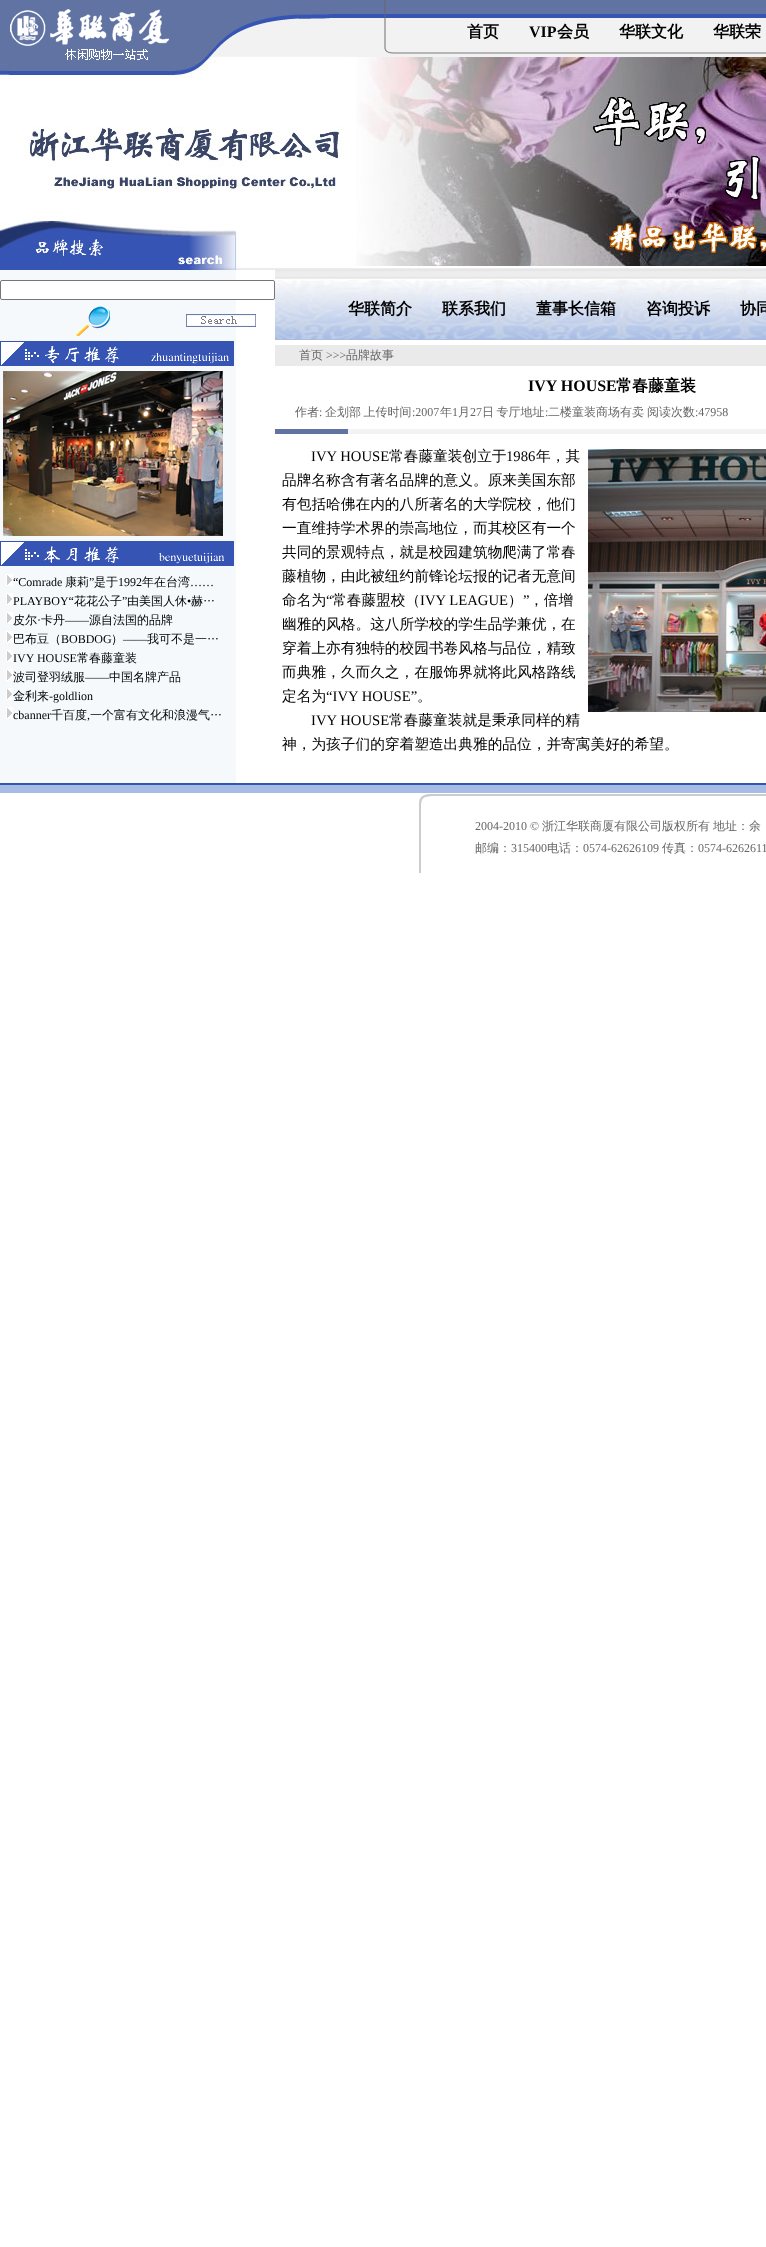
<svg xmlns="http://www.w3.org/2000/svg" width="766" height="2247">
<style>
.a{font:bold 16px WenQuanYi Zen Hei;fill:#000}
.b{font:bold 16px Liberation Serif;fill:#000}
.c{font:12px Liberation Serif;fill:#000}
.d{font:500 12px WenQuanYi Zen Hei;fill:#000}
.e{font:500 12px WenQuanYi Zen Hei;fill:#666}
.f{font:12px Liberation Serif;fill:#666}
.g{font:14.7px Liberation Serif;fill:#000}
.h{font:500 14.7px WenQuanYi Zen Hei;fill:#000}
</style>
<rect width="100%" height="100%" fill="#fff"/>
<image href="1.png" x="0" y="0" width="350" height="55"/>
<image href="2.png" x="10" y="9" width="159" height="37"/>
<image href="3.png" x="350" y="0" width="416" height="55"/>
<image href="4.png" x="0" y="55" width="350" height="215"/>
<image href="5.png" x="350" y="55" width="416" height="215"/>
<image href="6.png" x="356" y="57" width="410" height="209"/>
<path fill="#f5f9fc" d="M0 270h236v513H0z"/>
<rect fill="#fff" stroke="#767676" x="0.5" y="280.5" width="274" height="19" rx="1.5"/>
<image href="7.png" x="76" y="306" width="34" height="30"/>
<image href="8.png" x="186" y="314" width="70" height="13"/>
<image href="9.png" x="0" y="341" width="234" height="25"/>
<image href="10.png" x="3" y="371" width="220" height="165"/>
<image href="11.png" x="0" y="541" width="234" height="25"/>
<image href="12.png" x="6" y="574" width="7" height="12"/>
<image href="12.png" x="6" y="593" width="7" height="12"/>
<image href="12.png" x="6" y="612" width="7" height="12"/>
<image href="12.png" x="6" y="631" width="7" height="12"/>
<image href="12.png" x="6" y="650" width="7" height="12"/>
<image href="12.png" x="6" y="669" width="7" height="12"/>
<image href="12.png" x="6" y="688" width="7" height="12"/>
<image href="12.png" x="6" y="707" width="7" height="12"/>
<image href="13.png" x="275" y="270" width="491" height="70"/>
<path fill="#eaeaea" d="M275 345h491v21H275z"/>
<path fill="#6173a2" d="M275 429h73v5H275z"/>
<path fill="#f3f3f3" d="M348 429h418v5H348z"/>
<image href="14.png" x="588" y="449" width="178" height="263"/>
<image href="15.png" x="0" y="783" width="766" height="10"/>
<image href="16.png" x="419" y="794" width="347" height="79"/>
<text class="a" x="467" y="37">首页</text>
<text class="b" x="529" y="37">VIP</text>
<text class="a" x="557" y="37">会员</text>
<text class="a" x="619" y="37">华联文化</text>
<text class="a" x="713" y="37">华联荣</text>
<text class="c" x="13" y="586">“Comrade</text>
<text class="d" x="65" y="586">康莉</text>
<text class="c" x="89" y="586">”</text>
<text class="d" x="94" y="586">是于</text>
<text class="c" x="118" y="586">1992</text>
<text class="d" x="142" y="586">年在台湾</text>
<text class="c" x="190" y="586">……</text>
<text class="c" x="13" y="605">PLAYBOY“</text>
<text class="d" x="74" y="605">花花公子</text>
<text class="c" x="122" y="605">”</text>
<text class="d" x="127" y="605">由美国人休</text>
<text class="c" x="187" y="605">•</text>
<text class="d" x="191" y="605">赫…</text>
<text class="d" x="13" y="624">皮尔</text>
<text class="c" x="37" y="624">·</text>
<text class="d" x="41" y="624">卡丹</text>
<text class="c" x="65" y="624">——</text>
<text class="d" x="89" y="624">源自法国的品牌</text>
<text class="d" x="13" y="643">巴布豆（</text>
<text class="c" x="61" y="643">BOBDOG</text>
<text class="d" x="111" y="643">）</text>
<text class="c" x="123" y="643">——</text>
<text class="d" x="147" y="643">我可不是一…</text>
<text class="c" x="13" y="662">IVY HOUSE</text>
<text class="d" x="77" y="662">常春藤童装</text>
<text class="d" x="13" y="681">波司登羽绒服</text>
<text class="c" x="85" y="681">——</text>
<text class="d" x="109" y="681">中国名牌产品</text>
<text class="d" x="13" y="700">金利来</text>
<text class="c" x="49" y="700">-goldlion</text>
<text class="c" x="13" y="719">cbanner</text>
<text class="d" x="51" y="719">千百度</text>
<text class="c" x="87" y="719">,</text>
<text class="d" x="90" y="719">一个富有文化和浪漫气…</text>
<text class="a" x="348" y="314">华联简介</text>
<text class="a" x="442" y="314">联系我们</text>
<text class="a" x="536" y="314">董事长信箱</text>
<text class="a" x="646" y="314">咨询投诉</text>
<text class="a" x="740" y="314">协同</text>
<text class="e" x="299" y="359">首页</text>
<text class="f" x="326" y="359">&gt;&gt;&gt;</text>
<text class="e" x="346" y="359">品牌故事</text>
<text class="b" x="528" y="391">IVY HOUSE</text>
<text class="a" x="616" y="391">常春藤童装</text>
<text class="e" x="295" y="416">作者</text>
<text class="f" x="319" y="416">:</text>
<text class="e" x="325" y="416" word-spacing="-1">企划部 上传时间</text>
<text class="f" x="412" y="416">:2007</text>
<text class="e" x="440" y="416">年</text>
<text class="f" x="452" y="416">1</text>
<text class="e" x="458" y="416">月</text>
<text class="f" x="470" y="416">27</text>
<text class="e" x="482" y="416" word-spacing="-1">日 专厅地址</text>
<text class="f" x="545" y="416">:</text>
<text class="e" x="548" y="416">二楼童装商场有卖</text>
<text class="e" x="647" y="416">阅读次数</text>
<text class="f" x="695" y="416">:47958</text>
<text class="g" x="311" y="461">IVY HOUSE</text>
<text class="h" x="389" y="461">常春藤童装创立于</text>
<text class="g" x="506" y="461">1986</text>
<text class="h" x="536" y="461">年，其</text>
<text class="h" x="282" y="485">品牌名称含有著名品牌的意义。原来美国东部</text>
<text class="h" x="282" y="509">有包括哈佛在内的八所著名的大学院校，他们</text>
<text class="h" x="282" y="533">一直维持学术界的崇高地位，而其校区有一个</text>
<text class="h" x="282" y="557">共同的景观特点，就是校园建筑物爬满了常春</text>
<text class="h" x="282" y="581">藤植物，由此被纽约前锋论坛报的记者无意间</text>
<text class="h" x="282" y="605">命名为</text>
<text class="g" x="326" y="605">“</text>
<text class="h" x="332" y="605">常春藤盟校（</text>
<text class="g" x="420" y="605">IVY LEAGUE</text>
<text class="h" x="508" y="605">）</text>
<text class="g" x="523" y="605">”</text>
<text class="h" x="529" y="605">，倍增</text>
<text class="h" x="282" y="629">幽雅的风格。这八所学校的学生品学兼优，在</text>
<text class="h" x="282" y="653">穿着上亦有独特的校园书卷风格与品位，精致</text>
<text class="h" x="282" y="677">而典雅，久而久之，在服饰界就将此风格路线</text>
<text class="h" x="282" y="701">定名为</text>
<text class="g" x="326" y="701">“IVY HOUSE”</text>
<text class="h" x="417" y="701">。</text>
<text class="g" x="311" y="725">IVY HOUSE</text>
<text class="h" x="389" y="725">常春藤童装就是秉承同样的精</text>
<text class="h" x="282" y="749">神，为孩子们的穿着塑造出典雅的品位，并寄寓美好的希望。</text>
<text class="f" x="475" y="830">2004-2010 ©</text>
<text class="e" x="542" y="830">浙江华联商厦有限公司版权所有</text>
<text class="e" x="713" y="830">地址：余</text>
<text class="e" x="475" y="852">邮编：</text>
<text class="f" x="511" y="852">315400</text>
<text class="e" x="547" y="852">电话：</text>
<text class="f" x="583" y="852">0574-62626109</text>
<text class="e" x="662" y="852">传真：</text>
<text class="f" x="698" y="852">0574-6262611</text>
</svg>
